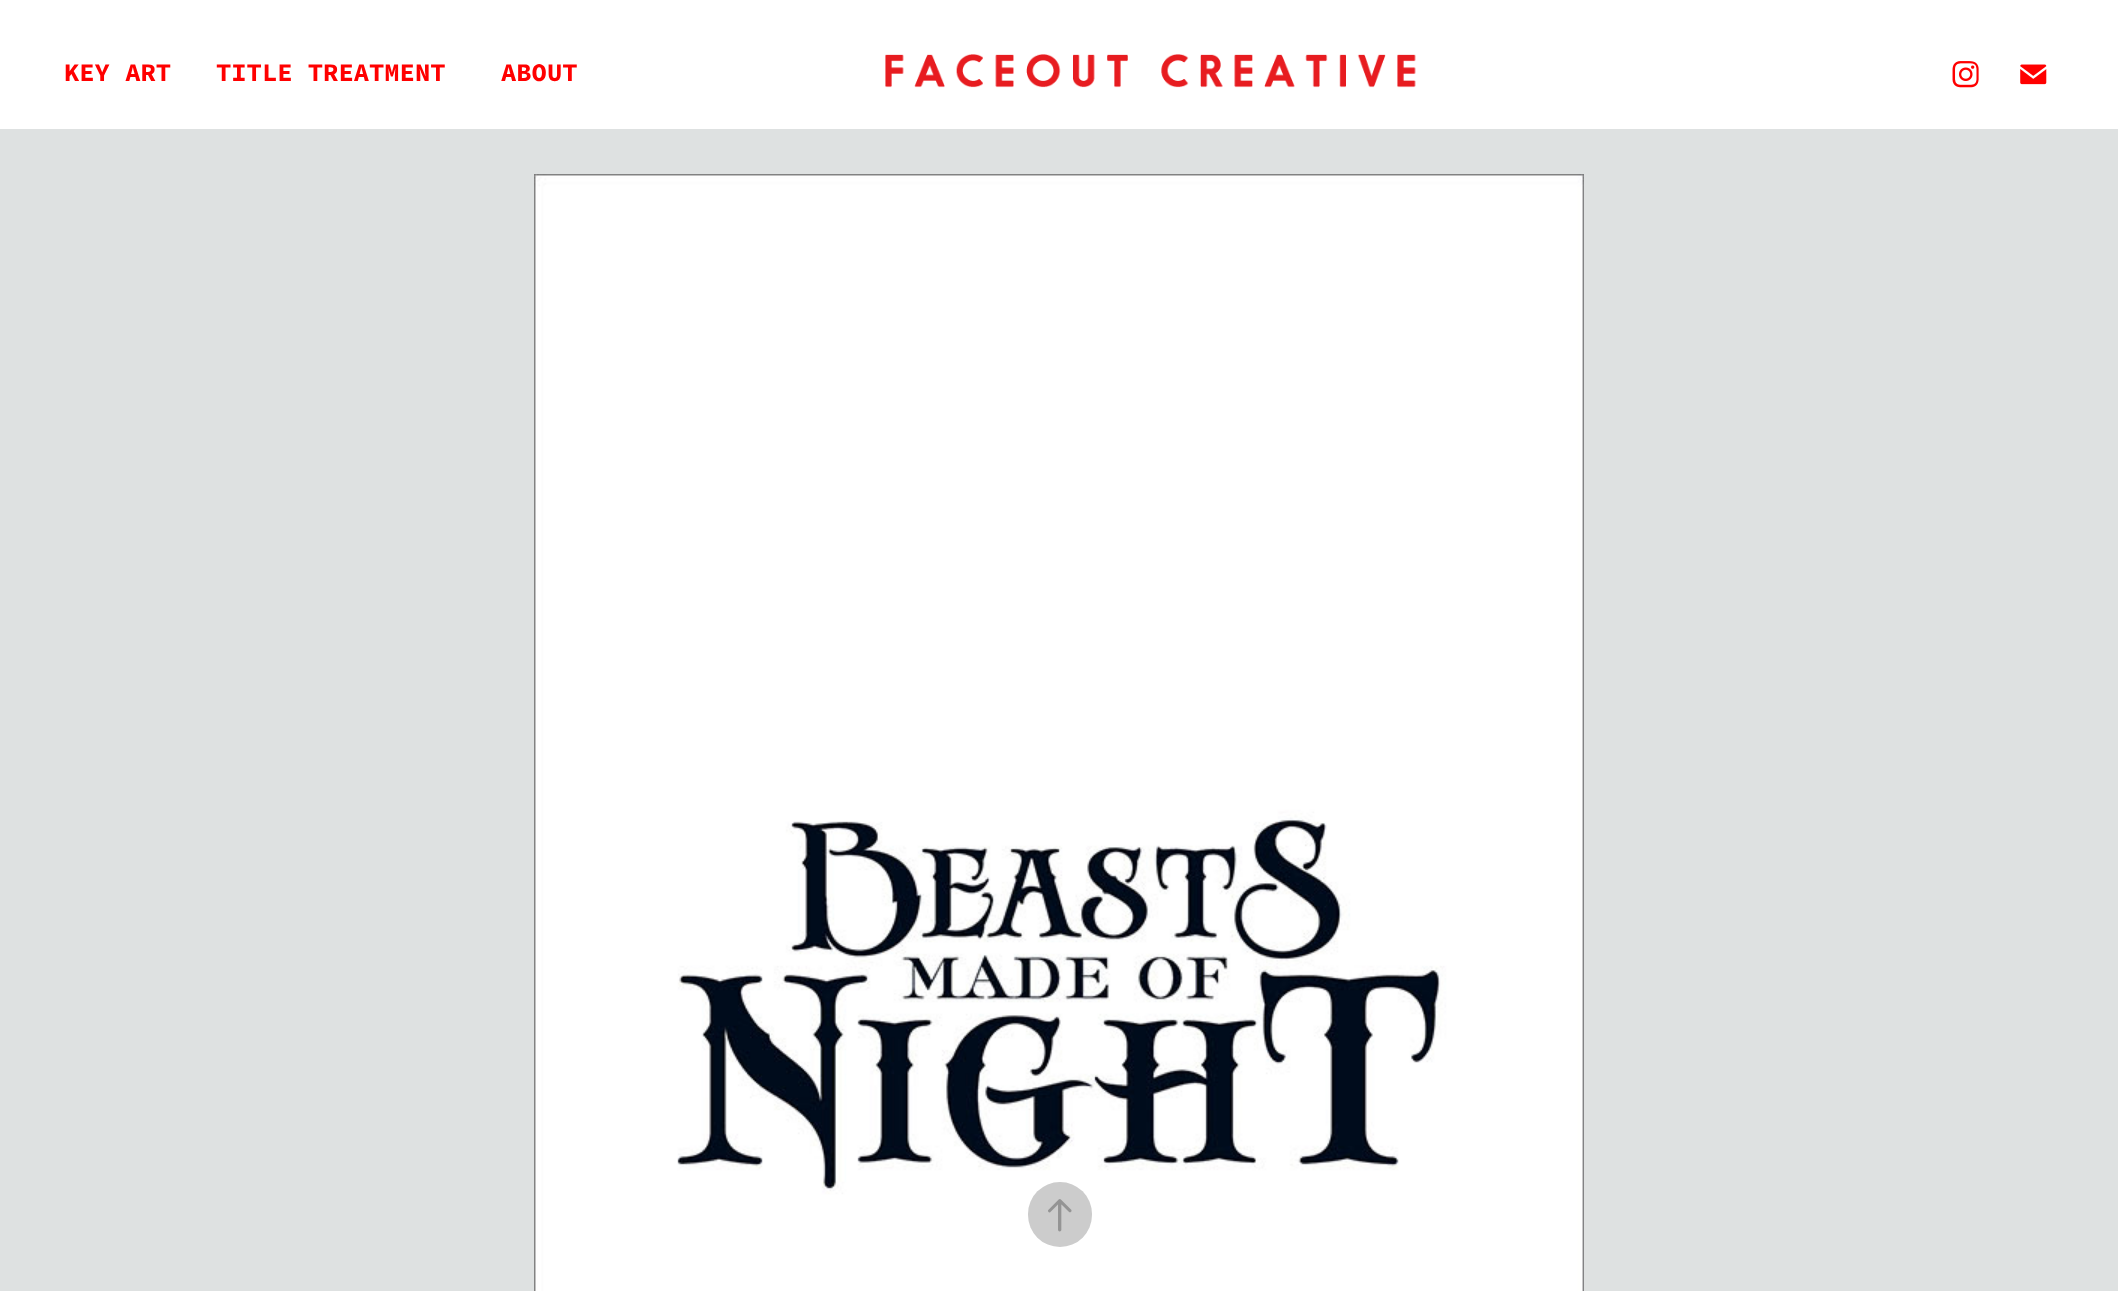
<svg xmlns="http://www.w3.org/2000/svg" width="2118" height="1291">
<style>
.a{font:bold 25.5px Source Code Pro;fill:#f00}
</style>
<rect width="100%" height="100%" fill="#dee1e1"/>
<path fill="#fff" d="M0 0h2118v129H0z"/>
<image href="1.png" x="885" y="54" width="531" height="34"/>
<image href="2.png" x="1952" y="61" width="27" height="27"/>
<image href="3.png" x="2020" y="64" width="27" height="21"/>
<image href="4.png" x="534" y="174" width="1050" height="1117"/>
<rect fill="#ccc" x="1028" y="1182" width="64" height="65" rx="32"/>
<image href="5.png" x="1048" y="1199" width="24" height="33"/>
<text class="a" x="64" y="81">KEY ART</text>
<text class="a" x="216" y="81">TITLE TREATMENT</text>
<text class="a" x="501" y="81">ABOUT</text>
</svg>
